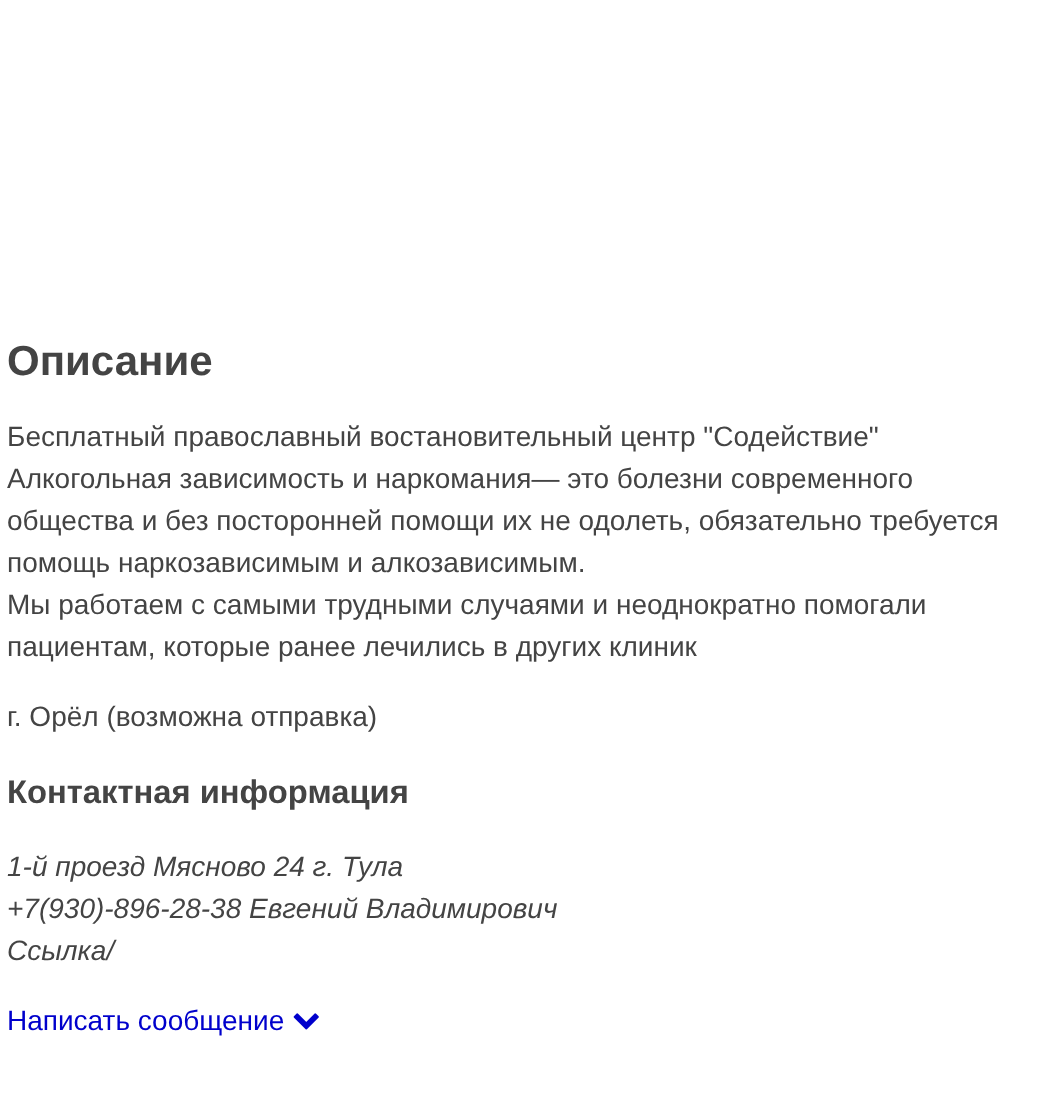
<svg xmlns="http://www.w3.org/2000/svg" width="1043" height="1110">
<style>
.a{font:bold 42px Liberation Sans;fill:#444}
.b{font:28px Liberation Sans;fill:#444}
.c{font:bold 32.75px Liberation Sans;fill:#444}
.d{font:italic 28px Liberation Sans;fill:#444}
.e{font:28px Liberation Sans;fill:#00c}
</style>
<rect width="100%" height="100%" fill="#fff"/>
<image href="1.png" x="293" y="1013" width="26" height="17"/>
<text class="a" x="7" y="375">Описание</text>
<text class="b" x="7" y="446">Бесплатный православный востановительный центр "Содействие"</text>
<text class="b" x="7" y="488">Алкогольная зависимость и наркомания— это болезни современного</text>
<text class="b" x="7" y="530">общества и без посторонней помощи их не одолеть, обязательно требуется</text>
<text class="b" x="7" y="572">помощь наркозависимым и алкозависимым.</text>
<text class="b" x="7" y="614">Мы работаем с самыми трудными случаями и неоднократно помогали</text>
<text class="b" x="7" y="656">пациентам, которые ранее лечились в других клиник</text>
<text class="b" x="7" y="726">г. Орёл (возможна отправка)</text>
<text class="c" x="7" y="803">Контактная информация</text>
<text class="d" x="7" y="876">1-й проезд Мясново 24 г. Тула</text>
<text class="d" x="7" y="918">+7(930)-896-28-38 Евгений Владимирович</text>
<text class="d" x="7" y="960">Ссылка/</text>
<text class="e" x="7" y="1030">Написать сообщение</text>
</svg>
